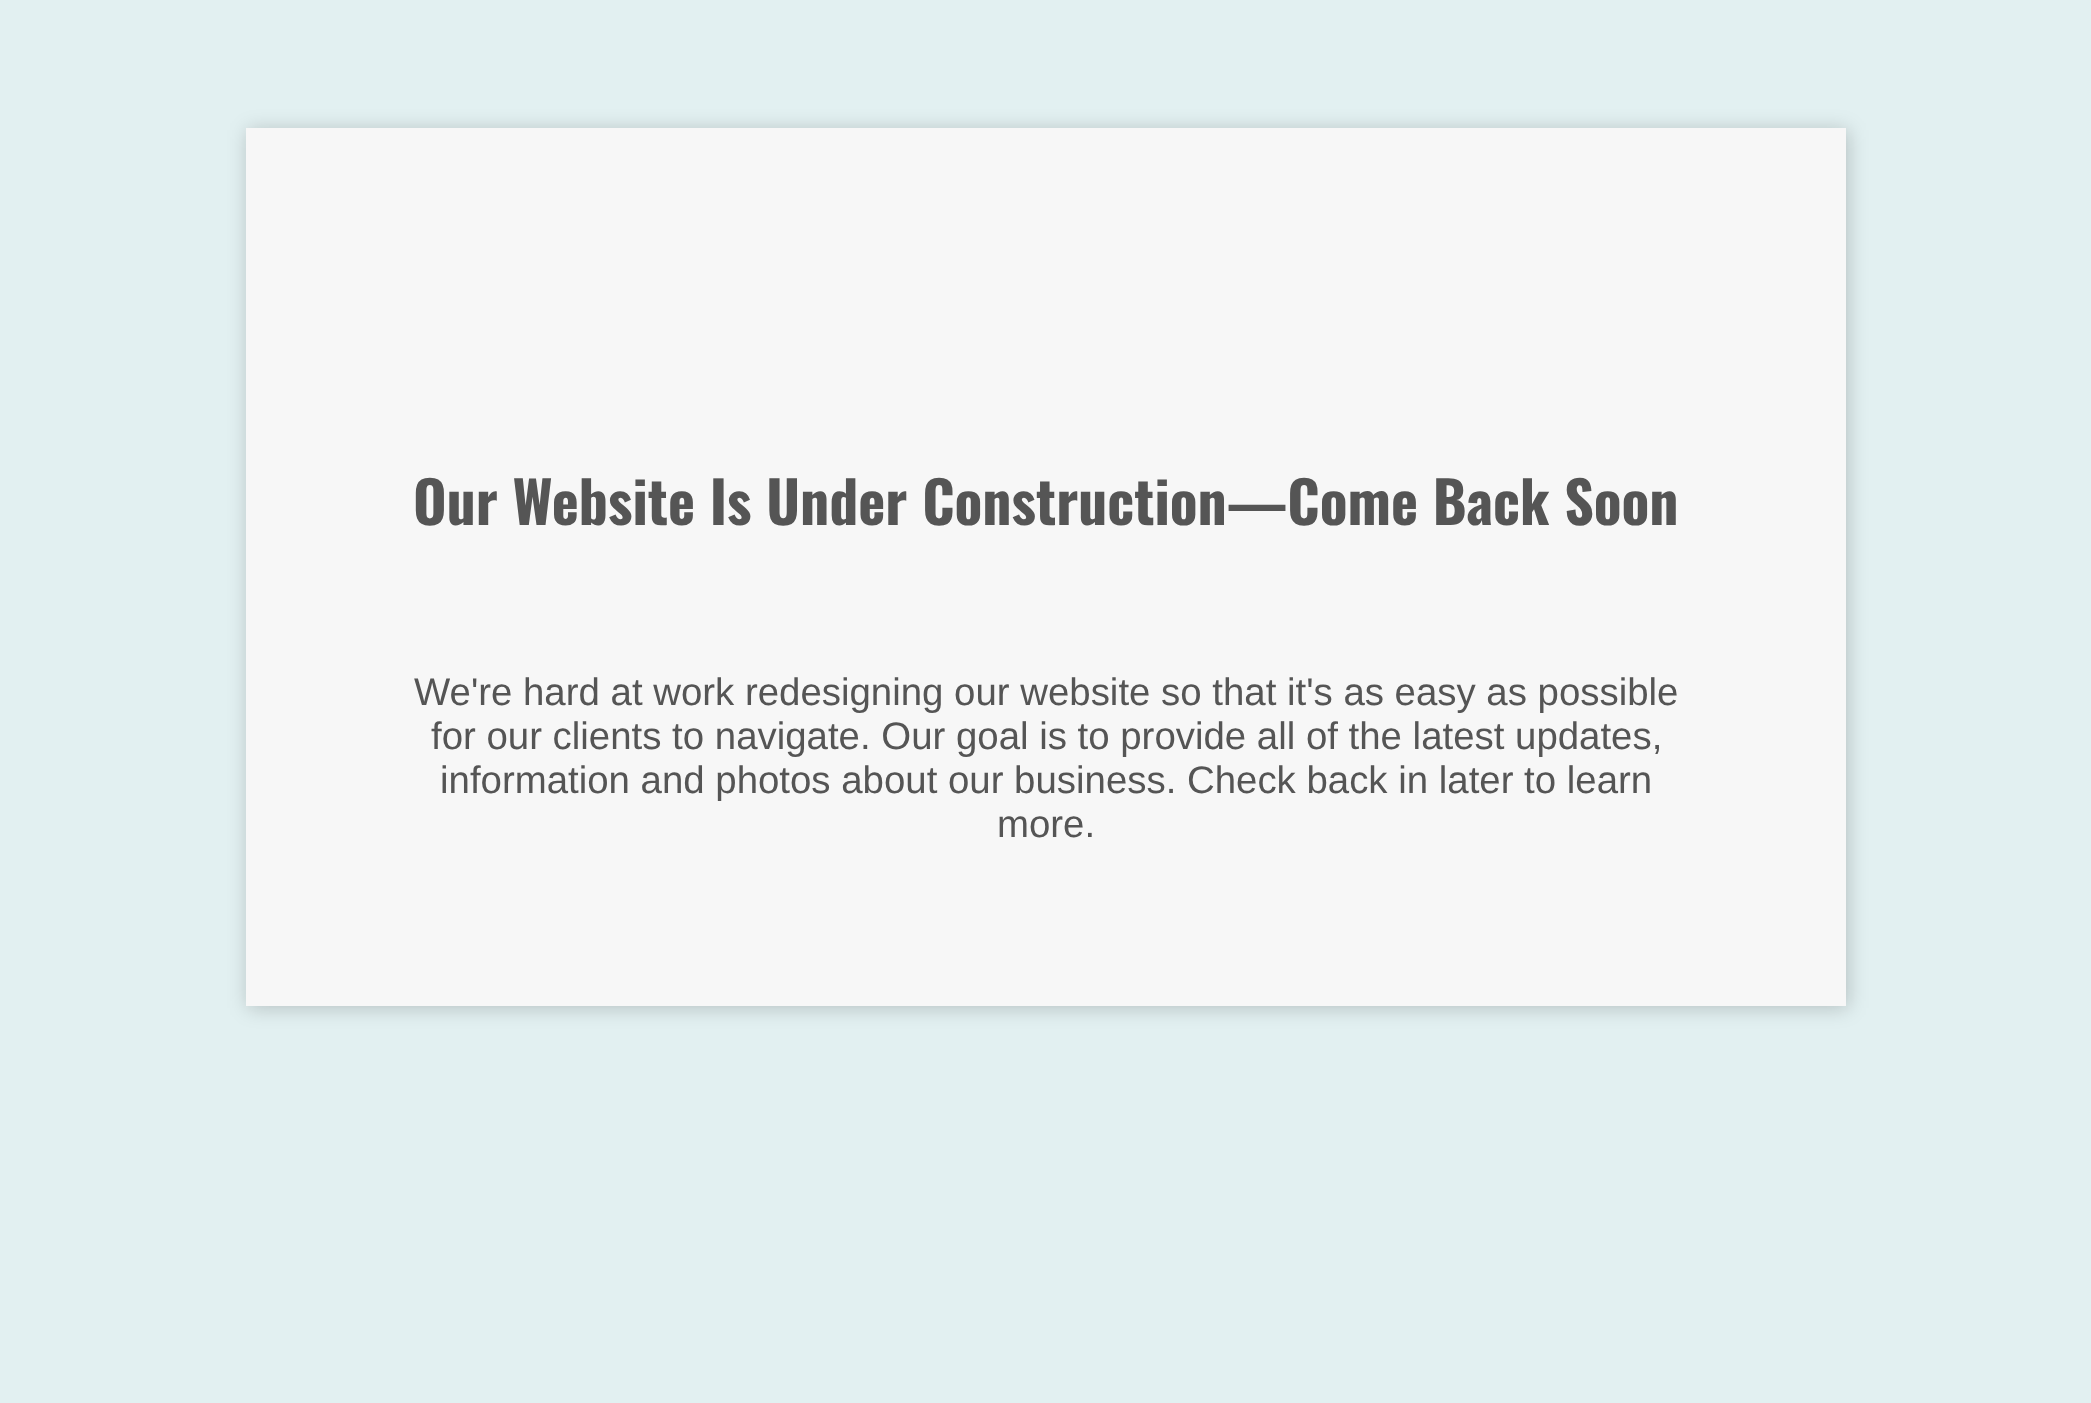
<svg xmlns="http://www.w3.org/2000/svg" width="2091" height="1403">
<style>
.a{font:bold 57.6px Oswald;fill:#555}
.b{font:38.4px Liberation Sans;fill:#555}
</style>
<rect width="100%" height="100%" fill="#e2f0f1"/>
<path fill="#00000033" filter="blur(10px)" d="M248 130h1600v878H248z"/>
<path fill="#f7f7f7" d="M246 128h1600v878H246z"/>
<text class="a" x="413" y="525">Our Website Is Under Construction—Come Back Soon</text>
<text class="b" x="414" y="705">We're hard at work redesigning our website so that it's as easy as possible</text>
<text class="b" x="431" y="749">for our clients to navigate. Our goal is to provide all of the latest updates,</text>
<text class="b" x="440" y="793">information and photos about our business. Check back in later to learn</text>
<text class="b" x="997" y="837">more.</text>
</svg>
